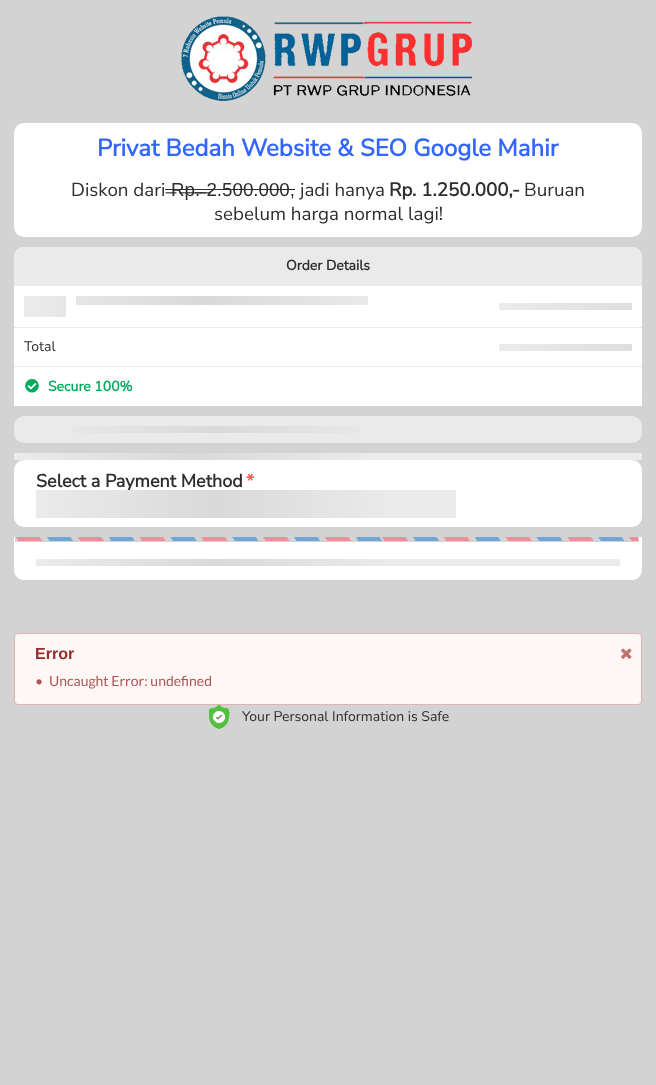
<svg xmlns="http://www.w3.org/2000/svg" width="656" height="1085">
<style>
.a{font:bold 24px Nunito Sans;fill:#36f}
.b{font:200 18.75px Nunito Sans;fill:#2e2e31}
.c{font:18.75px Liberation Sans;fill:#2e2e31}
.d{font:bold 18.75px Nunito Sans;fill:#2e2e31}
.e{font:bold 14px Nunito Sans;fill:#2e2e31}
.f{font:200 14px Nunito Sans;fill:#2e2e31}
.g{font:bold 14px Nunito Sans;fill:#00aa5b}
.h{font:bold 18px Nunito Sans;fill:#2e2e31}
.i{font:bold 18px Nunito Sans;fill:#ff5b5b}
.j{font:bold 16px Liberation Sans;fill:#912d2b}
.k{font:14px Lato;fill:#ad5655}
</style>
<defs>
<linearGradient id="g1" gradientUnits="userSpaceOnUse" x1="24" y1="307" x2="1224" y2="306"><stop offset="0" stop-color="#ebebeb"/><stop offset="0.15" stop-color="#d9d9d9"/><stop offset="0.3" stop-color="#ebebeb"/></linearGradient>
<linearGradient id="g2" gradientUnits="userSpaceOnUse" x1="499" y1="307" x2="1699" y2="306"><stop offset="0" stop-color="#ebebeb"/><stop offset="0.15" stop-color="#d9d9d9"/><stop offset="0.3" stop-color="#ebebeb"/></linearGradient>
<linearGradient id="g3" gradientUnits="userSpaceOnUse" x1="499" y1="348" x2="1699" y2="347"><stop offset="0" stop-color="#ebebeb"/><stop offset="0.15" stop-color="#d9d9d9"/><stop offset="0.3" stop-color="#ebebeb"/></linearGradient>
<linearGradient id="g4" gradientUnits="userSpaceOnUse" x1="36" y1="430" x2="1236" y2="429"><stop offset="0" stop-color="#ebebeb"/><stop offset="0.15" stop-color="#d9d9d9"/><stop offset="0.3" stop-color="#ebebeb"/></linearGradient>
<linearGradient id="g5" gradientUnits="userSpaceOnUse" x1="14" y1="457" x2="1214" y2="456"><stop offset="0" stop-color="#ebebeb"/><stop offset="0.15" stop-color="#d9d9d9"/><stop offset="0.3" stop-color="#ebebeb"/></linearGradient>
<linearGradient id="g6" gradientUnits="userSpaceOnUse" x1="36" y1="501" x2="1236" y2="500"><stop offset="0" stop-color="#ebebeb"/><stop offset="0.15" stop-color="#d9d9d9"/><stop offset="0.3" stop-color="#ebebeb"/></linearGradient>
<linearGradient id="g7" gradientUnits="userSpaceOnUse" x1="36" y1="508" x2="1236" y2="507"><stop offset="0" stop-color="#ebebeb"/><stop offset="0.15" stop-color="#d9d9d9"/><stop offset="0.3" stop-color="#ebebeb"/></linearGradient>
<linearGradient id="g8" gradientUnits="userSpaceOnUse" x1="36" y1="515" x2="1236" y2="515"><stop offset="0" stop-color="#ebebeb"/><stop offset="0.15" stop-color="#d9d9d9"/><stop offset="0.3" stop-color="#ebebeb"/></linearGradient>
<linearGradient id="g9" gradientUnits="userSpaceOnUse" x1="36" y1="563" x2="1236" y2="563"><stop offset="0" stop-color="#ebebeb"/><stop offset="0.15" stop-color="#d9d9d9"/><stop offset="0.3" stop-color="#ebebeb"/></linearGradient>
<linearGradient id="g10" gradientUnits="userSpaceOnUse" x1="36" y1="494" x2="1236" y2="493"><stop offset="0" stop-color="#ebebeb"/><stop offset="0.15" stop-color="#d9d9d9"/><stop offset="0.3" stop-color="#ebebeb"/></linearGradient>
</defs>
<rect width="100%" height="100%" fill="#d3d3d3"/>
<image href="1.png" x="181" y="16" width="291" height="85"/>
<rect fill="#fff" x="14" y="123" width="628" height="114" rx="10"/>
<path fill="#2e2e31" d="M165 189h130v1H165z"/>
<rect fill="#fff" x="14" y="247" width="628" height="159" rx="10"/>
<path fill="#eaeaea" d="M24 247h608c5.5 0 10 4.5 10 10v29h-628v-29c0-5.5 4.5-10 10-10z"/>
<path fill="#e9e9e9" d="M14 327h628v1H14z"/>
<path fill="url(#g1)" d="M24 296h344v21H24z"/>
<path fill="#fff" d="M66 296h10v9H66z"/>
<path fill="#fff" d="M66 305h302v12H66z"/>
<path fill="url(#g2)" d="M499 303h133v7H499z"/>
<path fill="url(#g3)" d="M499 344h133v7H499z"/>
<path fill="#fff" d="M14 397h628v9H14z"/>
<path fill="#eaeaea" d="M14 366h628v1H14z"/>
<image href="2.png" x="25" y="379" width="14" height="14"/>
<rect fill="#eaeaea" x="14" y="416" width="628" height="27" rx="10"/>
<path fill="url(#g4)" d="M71 426h290v7H71z"/>
<path fill="url(#g5)" d="M14 453h628v7H14z"/>
<rect fill="#fff" x="14" y="460" width="628" height="67" rx="10"/>
<path fill="url(#g6)" d="M36 497h420v7H36z"/>
<path fill="url(#g7)" d="M36 504h420v7H36z"/>
<path fill="url(#g8)" d="M36 511h420v7H36z"/>
<path fill="#fff" d="M14 537h628v33c0 5.5-4.5 10-10 10h-608c-5.5 0-10-4.5-10-10z"/>
<image href="3.png" x="15" y="537" width="624" height="5"/>
<path fill="url(#g9)" d="M36 559h584v7H36z"/>
<rect fill="#fff6f6" stroke="#e0b4b4" x="14.5" y="633.5" width="627" height="71" rx="3.5"/>
<image href="4.png" x="621" y="648" width="11" height="11"/>
<image href="5.png" x="209" y="705" width="21" height="24"/>
<text class="a" x="97" y="156">Privat Bedah Website &amp; SEO Google Mahir</text>
<text class="b" x="71" y="196">Diskon dari</text>
<text class="c" x="171" y="196" word-spacing="1">̶R̶p̶.̶ ̶2.500.000,</text>
<text class="b" x="300" y="196">jadi hanya</text>
<text class="d" x="389" y="196">Rp. 1.250.000,-</text>
<text class="b" x="524" y="196">Buruan</text>
<text class="b" x="214" y="220">sebelum harga normal lagi!</text>
<text class="e" x="286" y="270">Order Details</text>
<text class="f" x="24" y="351">Total</text>
<text class="g" x="48" y="391">Secure 100%</text>
<text class="h" x="36" y="487">Select a Payment Method</text>
<text class="i" x="246" y="487">*</text>
<path fill="url(#g10)" d="M36 490h420v7H36z"/>
<text class="j" x="35" y="659">Error</text>
<text class="k" x="35" y="686">•</text>
<text class="k" x="49" y="686">Uncaught Error: undefined</text>
<text class="f" x="242" y="721">Your Personal Information is Safe</text>
</svg>
